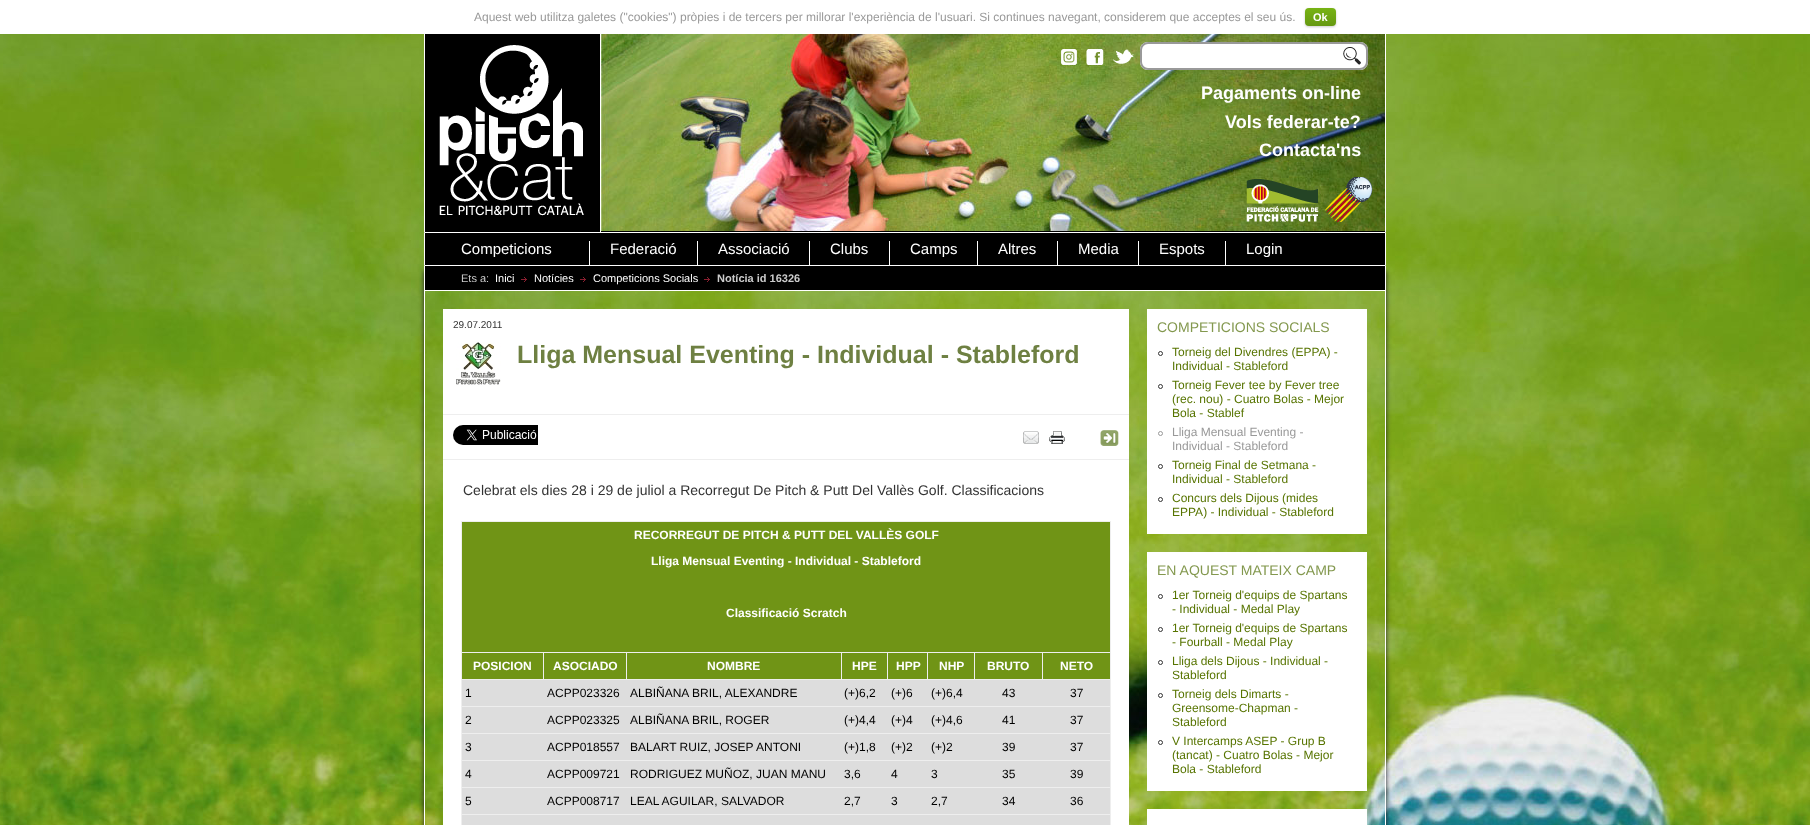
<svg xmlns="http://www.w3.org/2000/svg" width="1810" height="825">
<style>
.a{font:12px Liberation Sans;fill:#999}
.b{font:bold 11px Liberation Sans;fill:#fff}
.c{font:bold 18px Liberation Sans;fill:#fff}
.d{font:15px Liberation Sans;fill:#fff}
.e{font:11px Liberation Sans;fill:#ccc}
.f{font:11px Liberation Sans;fill:#fff}
.g{font:bold 11px Liberation Sans;fill:#ccc}
.h{font:10px Liberation Sans;fill:#333}
.i{font:bold 25px Liberation Sans;fill:#6e8042}
.j{font:14px Liberation Sans;fill:#333}
.k{font:bold 12px Liberation Sans;fill:#fff}
.l{font:12px Liberation Sans;fill:#000}
.m{font:14px Liberation Sans;fill:#83984e}
.n{font:12px Liberation Sans;fill:#577400}
</style>
<defs>
<linearGradient id="g1" gradientUnits="userSpaceOnUse" x1="1321" y1="8" x2="1321" y2="26"><stop offset="0" stop-color="#77b314"/><stop offset="1" stop-color="#691"/></linearGradient>
<clipPath id="clip1"><path d="M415 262h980v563h-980zm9 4h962v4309h-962z" clip-rule="evenodd"/></clipPath>
</defs>
<rect width="100%" height="100%" fill="#fff"/>
<image href="1.png" x="0" y="34" width="1810" height="791"/>
<rect fill="#ccc" filter="blur(1px)" x="1305" y="9" width="31" height="18" rx="4"/>
<rect fill="url(#g1)" x="1305" y="8" width="31" height="18" rx="4"/>
<path fill="#fff" d="M1385 34h1v198H1385z"/>
<path fill="#fff" d="M424 34h1v198H424z"/>
<path fill="#000" d="M425 34h960v198H425z"/>
<image href="2.png" x="601" y="34" width="784" height="197"/>
<image href="3.png" x="439" y="45" width="145" height="171"/>
<path fill="#fff" d="M600 34h1v198H600z"/>
<image href="4.png" x="1061" y="49" width="16" height="16"/>
<image href="5.png" x="1086" y="49" width="18" height="16"/>
<image href="6.png" x="1113" y="49" width="21" height="15"/>
<rect fill="#fff" x="1140" y="42" width="228" height="28" rx="8"/>
<image href="7.png" x="1343" y="47" width="18" height="18"/>
<rect fill="none" stroke="#999" stroke-width="2" x="1141" y="43" width="226" height="26" rx="7"/>
<image href="8.png" x="1246" y="177" width="127" height="45"/>
<path fill="#000" stroke="#fff" d="M424.5 232.5h961v33H424.5z"/>
<g clip-path="url(#clip1)">
<path fill="#222" filter="blur(2.5px)" d="M424 271h962v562H424z"/>
</g>
<path fill="#fff" d="M589 241h1v24H589z"/>
<path fill="#fff" d="M697 241h1v24H697z"/>
<path fill="#fff" d="M809 241h1v24H809z"/>
<path fill="#fff" d="M889 241h1v24H889z"/>
<path fill="#fff" d="M977 241h1v24H977z"/>
<path fill="#fff" d="M1057 241h1v24H1057z"/>
<path fill="#fff" d="M1138 241h1v24H1138z"/>
<path fill="#fff" d="M1225 241h1v24H1225z"/>
<path fill="#fff" d="M1385 266h1v559H1385z"/>
<path fill="#fff" d="M424 266h1v559H424z"/>
<path fill="#000" d="M425 266h960v24H425z"/>
<path fill="#fff" d="M425 290h960v1H425z"/>
<image href="9.png" x="521" y="277" width="6" height="5"/>
<image href="9.png" x="580" y="277" width="6" height="5"/>
<image href="9.png" x="704" y="277" width="6" height="5"/>
<path fill="#fff" d="M443 309h686v105H443z"/>
<image href="10.png" x="456" y="342" width="45" height="43"/>
<path fill="#fff" d="M443 415h686v44H443z"/>
<path fill="#eee" d="M443 414h686v1H443z"/>
<path fill="#eee" d="M443 459h686v1H443z"/>
<image href="11.png" x="453" y="425" width="85" height="20"/>
<image href="12.png" x="1023" y="431" width="16" height="13"/>
<image href="13.png" x="1049" y="431" width="16" height="13"/>
<image href="14.png" x="1100" y="430" width="19" height="16"/>
<path fill="#fff" d="M443 460h686v365H443z"/>
<path fill="#709416" d="M462 522h648v130H462z"/>
<path fill="#eee" d="M461 521h650v1H461z"/>
<path fill="#eee" d="M1042 652h69v1H1042z"/>
<path fill="#eee" d="M461 679h650v1H461z"/>
<path fill="#eee" d="M461 706h650v1H461z"/>
<path fill="#eee" d="M461 733h650v1H461z"/>
<path fill="#eee" d="M461 760h650v1H461z"/>
<path fill="#eee" d="M461 787h650v1H461z"/>
<path fill="#eee" d="M461 814h650v1H461z"/>
<path fill="#eee" d="M1110 814h1v11H1110z"/>
<path fill="#eee" d="M1110 787h1v28H1110z"/>
<path fill="#eee" d="M1110 760h1v28H1110z"/>
<path fill="#eee" d="M1110 733h1v28H1110z"/>
<path fill="#eee" d="M1110 706h1v28H1110z"/>
<path fill="#eee" d="M1110 679h1v28H1110z"/>
<path fill="#eee" d="M1110 548h1v132H1110z"/>
<path fill="#eee" d="M1110 521h1v28H1110z"/>
<path fill="#eee" d="M1042 652h1v28H1042z"/>
<path fill="#eee" d="M974 652h69v1H974z"/>
<path fill="#eee" d="M974 652h1v28H974z"/>
<path fill="#eee" d="M927 652h48v1H927z"/>
<path fill="#eee" d="M927 652h1v28H927z"/>
<path fill="#eee" d="M887 652h41v1H887z"/>
<path fill="#eee" d="M887 652h1v28H887z"/>
<path fill="#eee" d="M841 652h47v1H841z"/>
<path fill="#eee" d="M841 652h1v28H841z"/>
<path fill="#eee" d="M626 652h216v1H626z"/>
<path fill="#eee" d="M626 652h1v28H626z"/>
<path fill="#eee" d="M543 652h84v1H543z"/>
<path fill="#eee" d="M543 652h1v28H543z"/>
<path fill="#eee" d="M461 652h83v1H461z"/>
<path fill="#eee" d="M461 814h1v11H461z"/>
<path fill="#eee" d="M461 787h1v28H461z"/>
<path fill="#eee" d="M461 760h1v28H461z"/>
<path fill="#eee" d="M461 733h1v28H461z"/>
<path fill="#eee" d="M461 706h1v28H461z"/>
<path fill="#eee" d="M461 679h1v28H461z"/>
<path fill="#eee" d="M461 548h1v132H461z"/>
<path fill="#eee" d="M461 521h1v28H461z"/>
<path fill="#709416" d="M462 653h81v26H462z"/>
<path fill="#709416" d="M544 653h82v26H544z"/>
<path fill="#709416" d="M627 653h214v26H627z"/>
<path fill="#709416" d="M842 653h45v26H842z"/>
<path fill="#709416" d="M888 653h39v26H888z"/>
<path fill="#709416" d="M928 653h46v26H928z"/>
<path fill="#709416" d="M975 653h67v26H975z"/>
<path fill="#709416" d="M1043 653h67v26H1043z"/>
<path fill="#ddd" d="M462 680h648v26H462z"/>
<path fill="#ddd" d="M462 707h648v26H462z"/>
<path fill="#ddd" d="M462 734h648v26H462z"/>
<path fill="#ddd" d="M462 761h648v26H462z"/>
<path fill="#ddd" d="M462 788h648v26H462z"/>
<path fill="#ddd" d="M462 815h648v10H462z"/>
<path fill="#fff" d="M1147 309h220v225H1147z"/>
<circle fill="none" stroke="#333" cx="1160.5" cy="353.5" r="2"/>
<circle fill="none" stroke="#333" cx="1160.5" cy="386.5" r="2"/>
<circle fill="none" stroke="#999" cx="1160.5" cy="433.5" r="2"/>
<circle fill="none" stroke="#333" cx="1160.5" cy="466.5" r="2"/>
<circle fill="none" stroke="#333" cx="1160.5" cy="499.5" r="2"/>
<path fill="#fff" d="M1147 552h220v239H1147z"/>
<circle fill="none" stroke="#333" cx="1160.5" cy="596.5" r="2"/>
<circle fill="none" stroke="#333" cx="1160.5" cy="629.5" r="2"/>
<circle fill="none" stroke="#333" cx="1160.5" cy="662.5" r="2"/>
<circle fill="none" stroke="#333" cx="1160.5" cy="695.5" r="2"/>
<circle fill="none" stroke="#333" cx="1160.5" cy="742.5" r="2"/>
<path fill="#fff" d="M1147 809h220v16H1147z"/>
<text class="a" x="474" y="21">Aquest web utilitza galetes ("cookies") pròpies i de tercers per millorar l'experiència de l'usuari. Si continues navegant, considerem que acceptes el seu ús.</text>
<text class="b" x="1313" y="21">Ok</text>
<text class="c" x="1201" y="99">Pagaments on-line</text>
<text class="c" x="1225" y="128">Vols federar-te?</text>
<text class="c" x="1259" y="156">Contacta'ns</text>
<text class="d" x="461" y="254">Competicions</text>
<text class="d" x="610" y="254">Federació</text>
<text class="d" x="718" y="254">Associació</text>
<text class="d" x="830" y="254">Clubs</text>
<text class="d" x="910" y="254">Camps</text>
<text class="d" x="998" y="254">Altres</text>
<text class="d" x="1078" y="254">Media</text>
<text class="d" x="1159" y="254">Espots</text>
<text class="d" x="1246" y="254">Login</text>
<text class="e" x="461" y="282">Ets a:</text>
<text class="f" x="495" y="282">Inici</text>
<text class="f" x="534" y="282">Notícies</text>
<text class="f" x="593" y="282">Competicions Socials</text>
<text class="g" x="717" y="282">Notícia id 16326</text>
<text class="h" x="453" y="328">29.07.2011</text>
<text class="i" x="517" y="363">Lliga Mensual Eventing - Individual - Stableford</text>
<text class="j" x="463" y="495">Celebrat els dies 28 i 29 de juliol a Recorregut De Pitch &amp; Putt Del Vallès Golf. Classificacions</text>
<text class="k" x="634" y="539">RECORREGUT DE PITCH &amp; PUTT DEL VALLÈS GOLF</text>
<text class="k" x="651" y="565">Lliga Mensual Eventing - Individual - Stableford</text>
<text class="k" x="726" y="617">Classificació Scratch</text>
<text class="k" x="473" y="670">POSICION</text>
<text class="k" x="553" y="670">ASOCIADO</text>
<text class="k" x="707" y="670">NOMBRE</text>
<text class="k" x="852" y="670">HPE</text>
<text class="k" x="896" y="670">HPP</text>
<text class="k" x="939" y="670">NHP</text>
<text class="k" x="987" y="670">BRUTO</text>
<text class="k" x="1060" y="670">NETO</text>
<text class="l" x="465" y="697">1</text>
<text class="l" x="547" y="697">ACPP023326</text>
<text class="l" x="630" y="697">ALBIÑANA BRIL, ALEXANDRE</text>
<text class="l" x="844" y="697">(+)6,2</text>
<text class="l" x="891" y="697">(+)6</text>
<text class="l" x="931" y="697">(+)6,4</text>
<text class="l" x="1002" y="697">43</text>
<text class="l" x="1070" y="697">37</text>
<text class="l" x="465" y="724">2</text>
<text class="l" x="547" y="724">ACPP023325</text>
<text class="l" x="630" y="724">ALBIÑANA BRIL, ROGER</text>
<text class="l" x="844" y="724">(+)4,4</text>
<text class="l" x="891" y="724">(+)4</text>
<text class="l" x="931" y="724">(+)4,6</text>
<text class="l" x="1002" y="724">41</text>
<text class="l" x="1070" y="724">37</text>
<text class="l" x="465" y="751">3</text>
<text class="l" x="547" y="751">ACPP018557</text>
<text class="l" x="630" y="751">BALART RUIZ, JOSEP ANTONI</text>
<text class="l" x="844" y="751">(+)1,8</text>
<text class="l" x="891" y="751">(+)2</text>
<text class="l" x="931" y="751">(+)2</text>
<text class="l" x="1002" y="751">39</text>
<text class="l" x="1070" y="751">37</text>
<text class="l" x="465" y="778">4</text>
<text class="l" x="547" y="778">ACPP009721</text>
<text class="l" x="630" y="778">RODRIGUEZ MUÑOZ, JUAN MANU</text>
<text class="l" x="844" y="778">3,6</text>
<text class="l" x="891" y="778">4</text>
<text class="l" x="931" y="778">3</text>
<text class="l" x="1002" y="778">35</text>
<text class="l" x="1070" y="778">39</text>
<text class="l" x="465" y="805">5</text>
<text class="l" x="547" y="805">ACPP008717</text>
<text class="l" x="630" y="805">LEAL AGUILAR, SALVADOR</text>
<text class="l" x="844" y="805">2,7</text>
<text class="l" x="891" y="805">3</text>
<text class="l" x="931" y="805">2,7</text>
<text class="l" x="1002" y="805">34</text>
<text class="l" x="1070" y="805">36</text>
<text class="m" x="1157" y="332">COMPETICIONS SOCIALS</text>
<text class="n" x="1172" y="356">Torneig del Divendres (EPPA) -</text>
<text class="n" x="1172" y="370">Individual - Stableford</text>
<text class="n" x="1172" y="389">Torneig Fever tee by Fever tree</text>
<text class="n" x="1172" y="403">(rec. nou) - Cuatro Bolas - Mejor</text>
<text class="n" x="1172" y="417">Bola - Stablef</text>
<text class="a" x="1172" y="436">Lliga Mensual Eventing -</text>
<text class="a" x="1172" y="450">Individual - Stableford</text>
<text class="n" x="1172" y="469">Torneig Final de Setmana -</text>
<text class="n" x="1172" y="483">Individual - Stableford</text>
<text class="n" x="1172" y="502">Concurs dels Dijous (mides</text>
<text class="n" x="1172" y="516">EPPA) - Individual - Stableford</text>
<text class="m" x="1157" y="575">EN AQUEST MATEIX CAMP</text>
<text class="n" x="1172" y="599">1er Torneig d'equips de Spartans</text>
<text class="n" x="1172" y="613">- Individual - Medal Play</text>
<text class="n" x="1172" y="632">1er Torneig d'equips de Spartans</text>
<text class="n" x="1172" y="646">- Fourball - Medal Play</text>
<text class="n" x="1172" y="665">Lliga dels Dijous - Individual -</text>
<text class="n" x="1172" y="679">Stableford</text>
<text class="n" x="1172" y="698">Torneig dels Dimarts -</text>
<text class="n" x="1172" y="712">Greensome-Chapman -</text>
<text class="n" x="1172" y="726">Stableford</text>
<text class="n" x="1172" y="745">V Intercamps ASEP - Grup B</text>
<text class="n" x="1172" y="759">(tancat) - Cuatro Bolas - Mejor</text>
<text class="n" x="1172" y="773">Bola - Stableford</text>
</svg>
